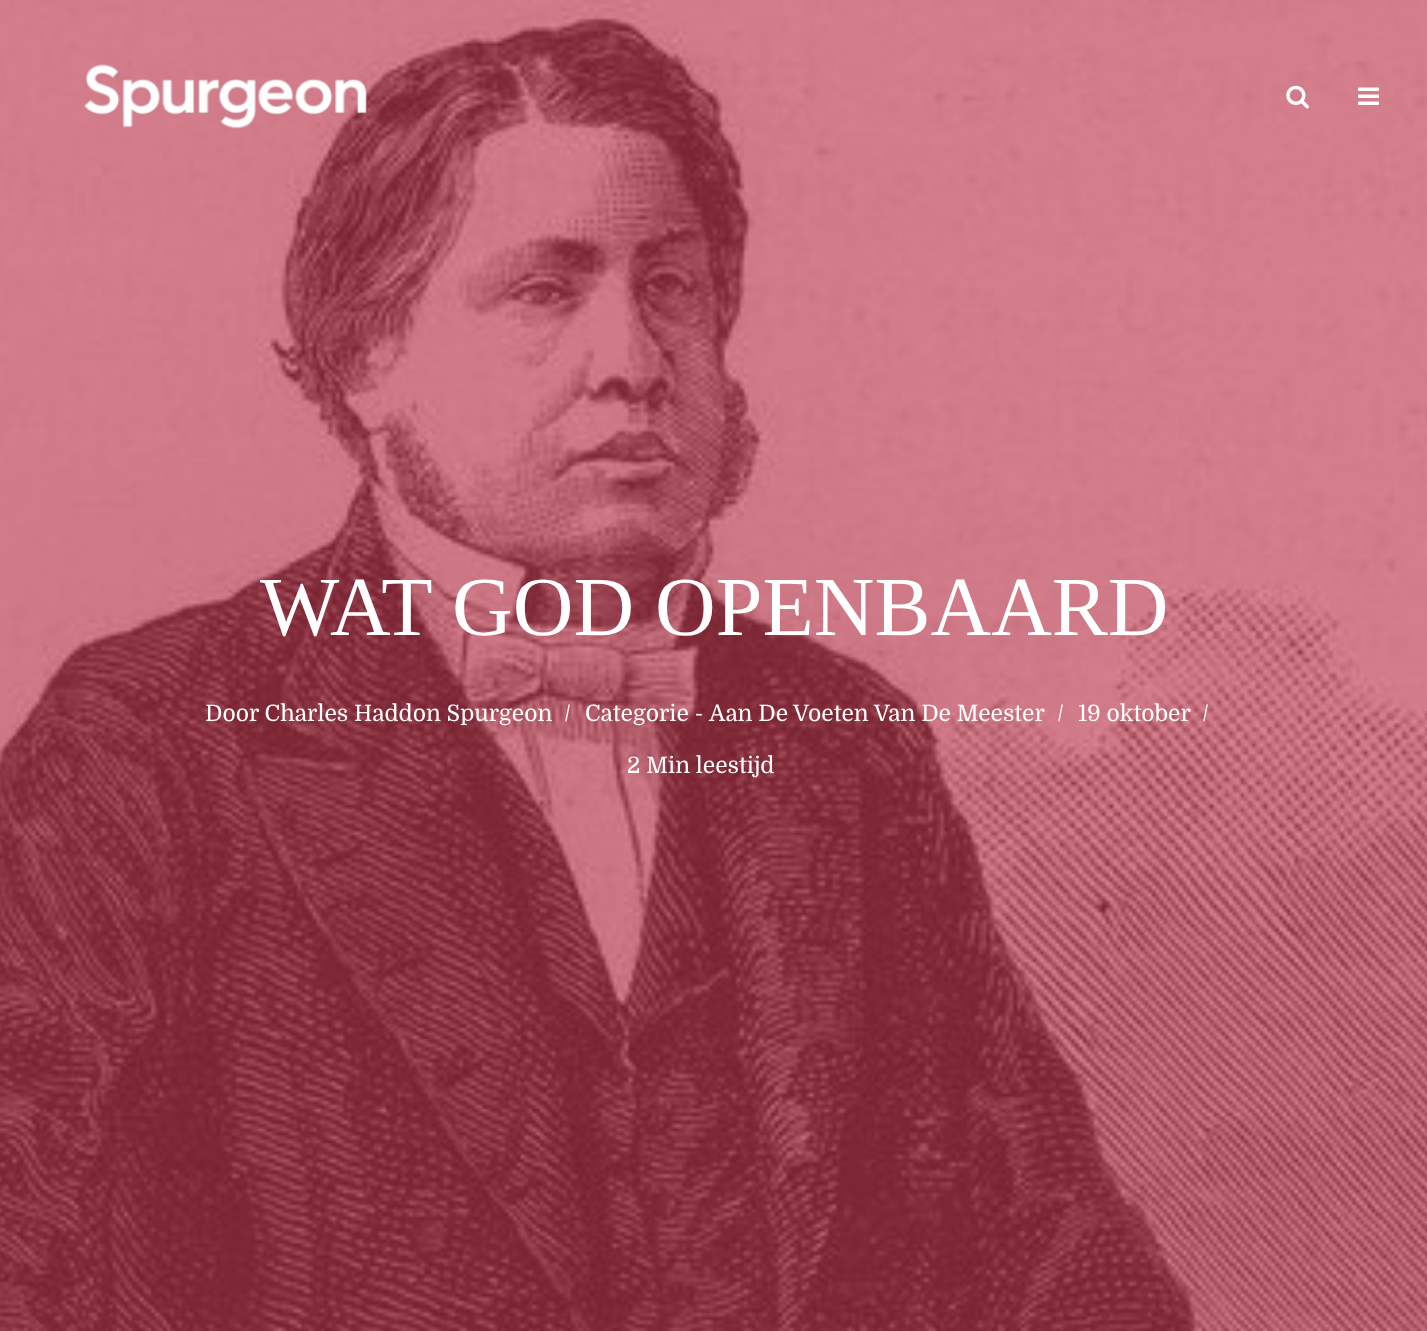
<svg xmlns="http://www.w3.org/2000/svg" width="1427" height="1331">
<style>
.a{font:84px Liberation Serif;fill:#fff}
.b{font:22.75px Domine;fill:#fff}
</style>
<rect width="100%" height="100%" fill="#fff"/>
<image href="4.png" x="0" y="0" width="1427" height="1331"/>
<image href="1.png" x="84" y="64" width="283" height="65"/>
<image href="2.png" x="1286" y="85" width="23" height="24"/>
<image href="3.png" x="1358" y="87" width="21" height="18"/>
<text class="a" x="260" y="635">WAT GOD OPENBAARD</text>
<text class="b" x="205" y="721">Door Charles Haddon Spurgeon</text>
<text class="b" x="564" y="721">/</text>
<text class="b" x="585" y="721">Categorie -</text>
<text class="b" x="709" y="721">Aan De Voeten Van De Meester</text>
<text class="b" x="1057" y="721">/</text>
<text class="b" x="1078" y="721">19 oktober</text>
<text class="b" x="1202" y="721">/</text>
<text class="b" x="627" y="773">2 Min leestijd</text>
</svg>
